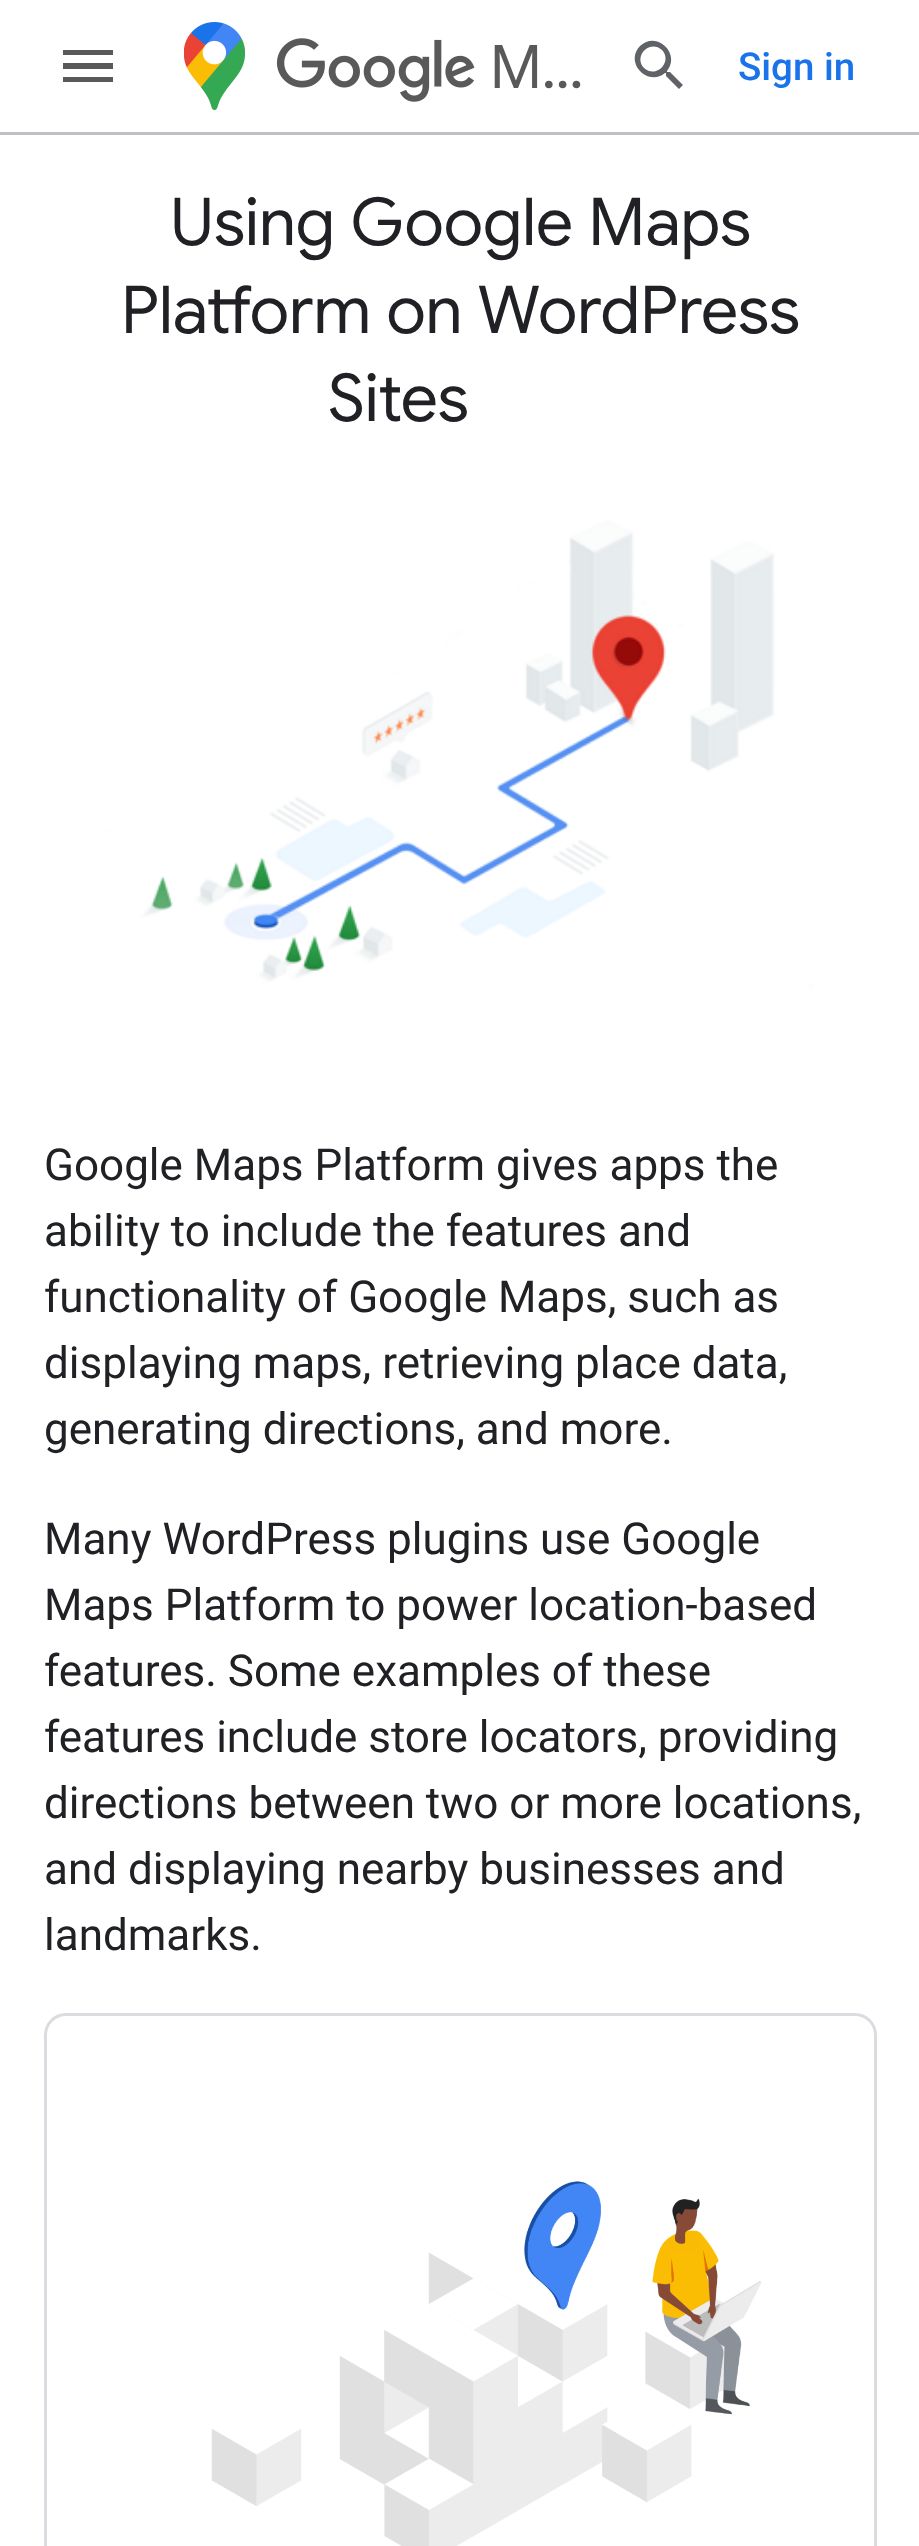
<svg xmlns="http://www.w3.org/2000/svg" width="919" height="2546">
<style>
.a{font:60px Google Sans;fill:#595959}
.b{font:500 38.5px Roboto;fill:#1a73e8}
.c{font:66px Google Sans;fill:#202124}
.d{font:44px Roboto;fill:#202124}
</style>
<rect width="100%" height="100%" fill="#fff"/>
<path fill="#bdc1c6" d="M0 132h919v3H0z"/>
<path fill="#595959" d="M63 50h50v5h-50zm0 19v-6h50v6zm0 13v-5h50v5z"/>
<image href="1.png" x="184" y="22" width="61" height="88"/>
<image href="2.png" x="276" y="38" width="199" height="64"/>
<path fill="#5f6368" d="M644 68c12 11 29-6 18-18c-12-11-29 6-18 18zm26 4l13 13l-4 4l-13-13v-3h-1c-17 14-41-10-25-27c17-16 41 8 27 25v1z"/>
<image href="3.png" x="44" y="487" width="833" height="558"/>
<rect fill="none" stroke="#dadce0" stroke-width="3" x="45.5" y="2014.5" width="830" height="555" rx="20.5"/>
<image href="4.png" x="211" y="2181" width="551" height="365"/>
<text class="a" x="490" y="88">M…</text>
<text class="b" x="738" y="80">Sign in</text>
<text class="c" x="170" y="245">Using Google Maps</text>
<text class="c" x="121" y="333">Platform on WordPress</text>
<text class="c" x="328" y="421">Sites</text>
<text class="d" x="44" y="1180">Google Maps Platform gives apps the</text>
<text class="d" x="44" y="1246">ability to include the features and</text>
<text class="d" x="44" y="1312">functionality of Google Maps, such as</text>
<text class="d" x="44" y="1378">displaying maps, retrieving place data,</text>
<text class="d" x="44" y="1444">generating directions, and more.</text>
<text class="d" x="44" y="1554">Many WordPress plugins use Google</text>
<text class="d" x="44" y="1620">Maps Platform to power location-based</text>
<text class="d" x="44" y="1686">features. Some examples of these</text>
<text class="d" x="44" y="1752">features include store locators, providing</text>
<text class="d" x="44" y="1818">directions between two or more locations,</text>
<text class="d" x="44" y="1884">and displaying nearby businesses and</text>
<text class="d" x="44" y="1950">landmarks.</text>
</svg>
